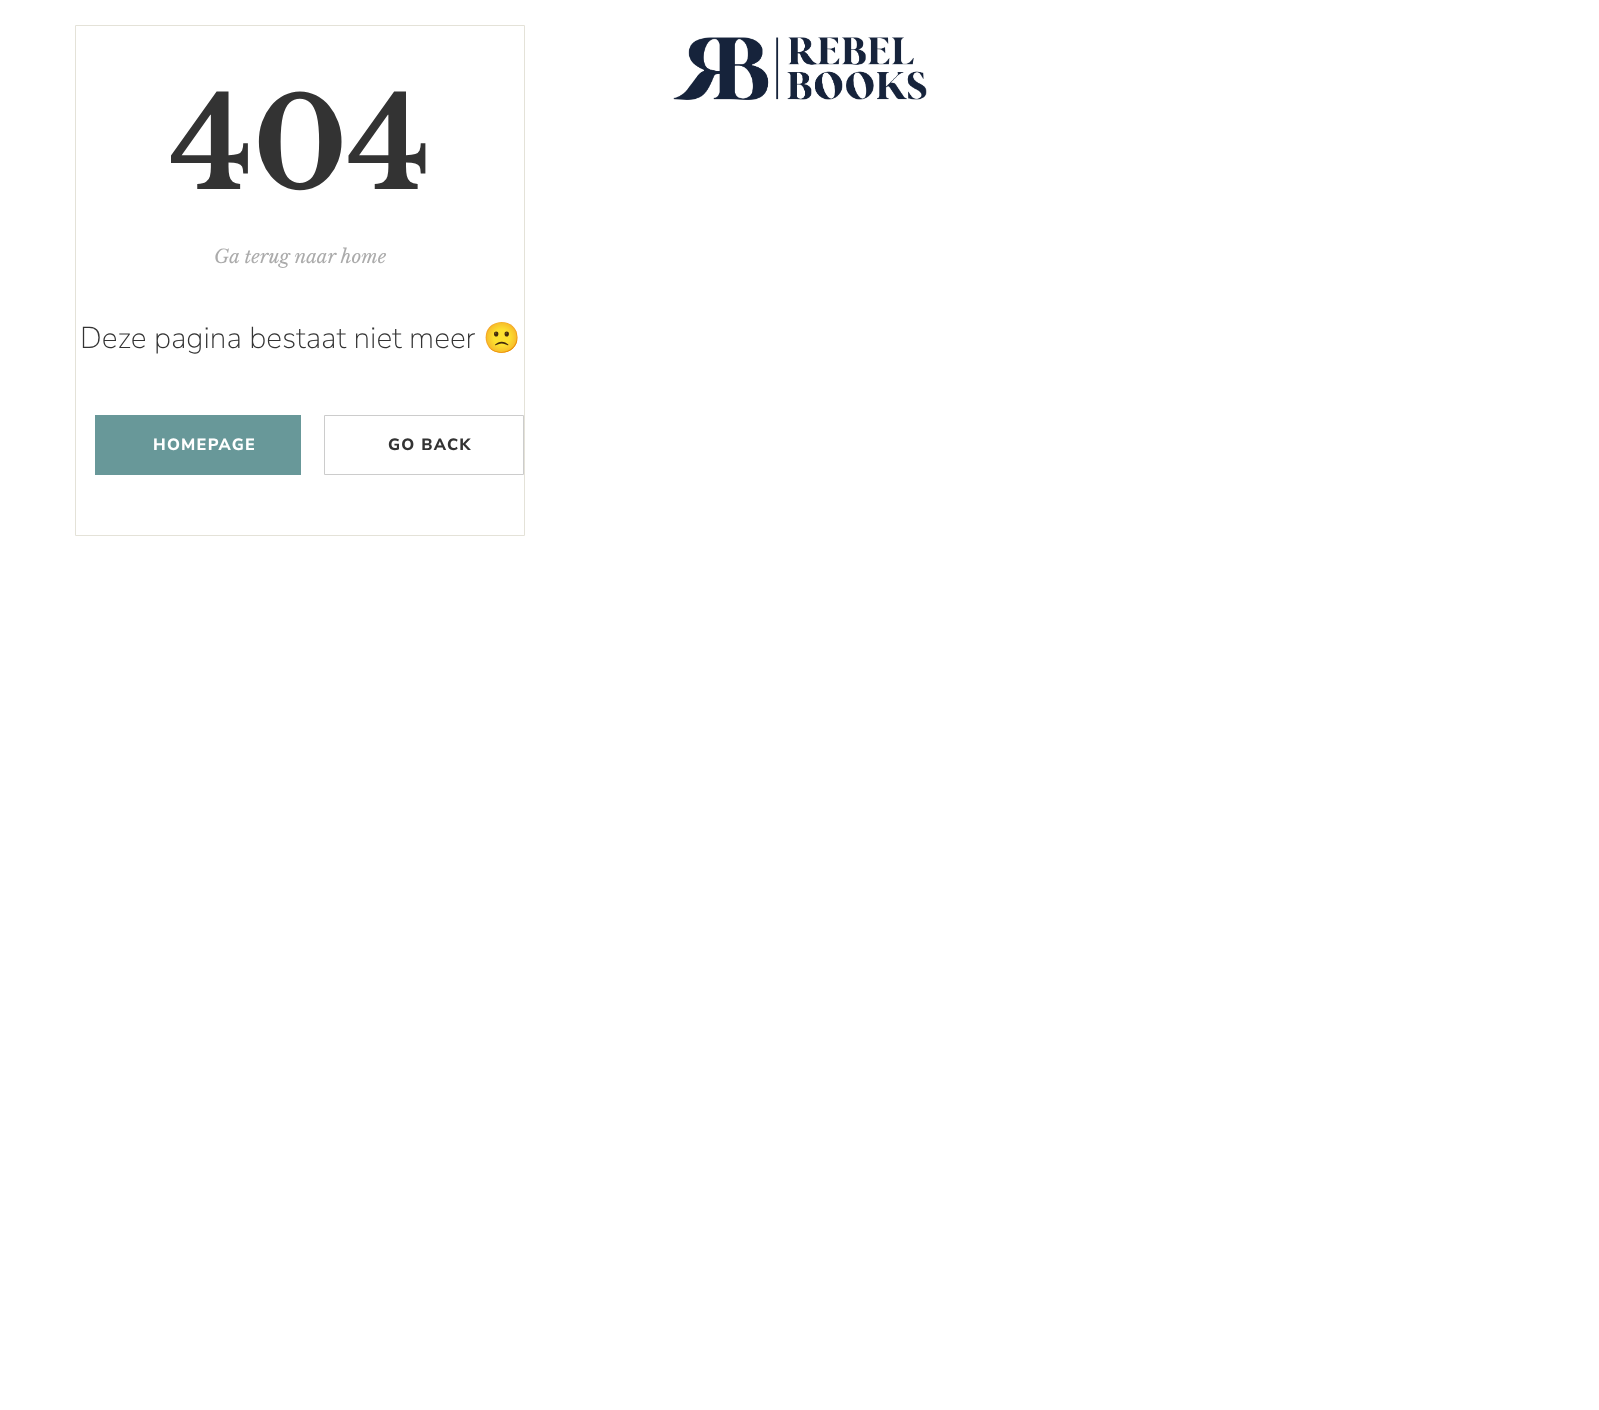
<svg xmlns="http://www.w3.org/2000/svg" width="1599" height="1410">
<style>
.a{font:bold 125px Libre Baskerville;fill:#333}
.b{font:italic 18.75px Libre Baskerville;fill:#ababab}
.c{font:200 30px Nunito Sans;fill:#333}
.d{font:30px Noto Color Emoji;fill:#333}
.e{font:800 16.25px Nunito Sans;letter-spacing:1.25px;fill:#fff}
.f{font:800 16.25px Nunito Sans;letter-spacing:1.25px;fill:#333}
</style>
<rect width="100%" height="100%" fill="#fff"/>
<image href="1.png" x="673" y="37" width="254" height="63"/>
<path fill="none" stroke="#e4e2d8" d="M75.5 25.5h449v510H75.5z"/>
<path fill="#689899" d="M95 415h206v60H95z"/>
<path fill="none" stroke="#ccc" d="M324.5 415.5h199v59H324.5z"/>
<text class="a" x="170" y="189">404</text>
<text class="b" x="214" y="263">Ga terug naar home</text>
<text class="c" x="80" y="348">Deze pagina bestaat niet meer</text>
<text class="d" x="483" y="348">🙁</text>
<text class="e" x="153" y="450">HOMEPAGE</text>
<text class="f" x="388" y="450">GO BACK</text>
</svg>
